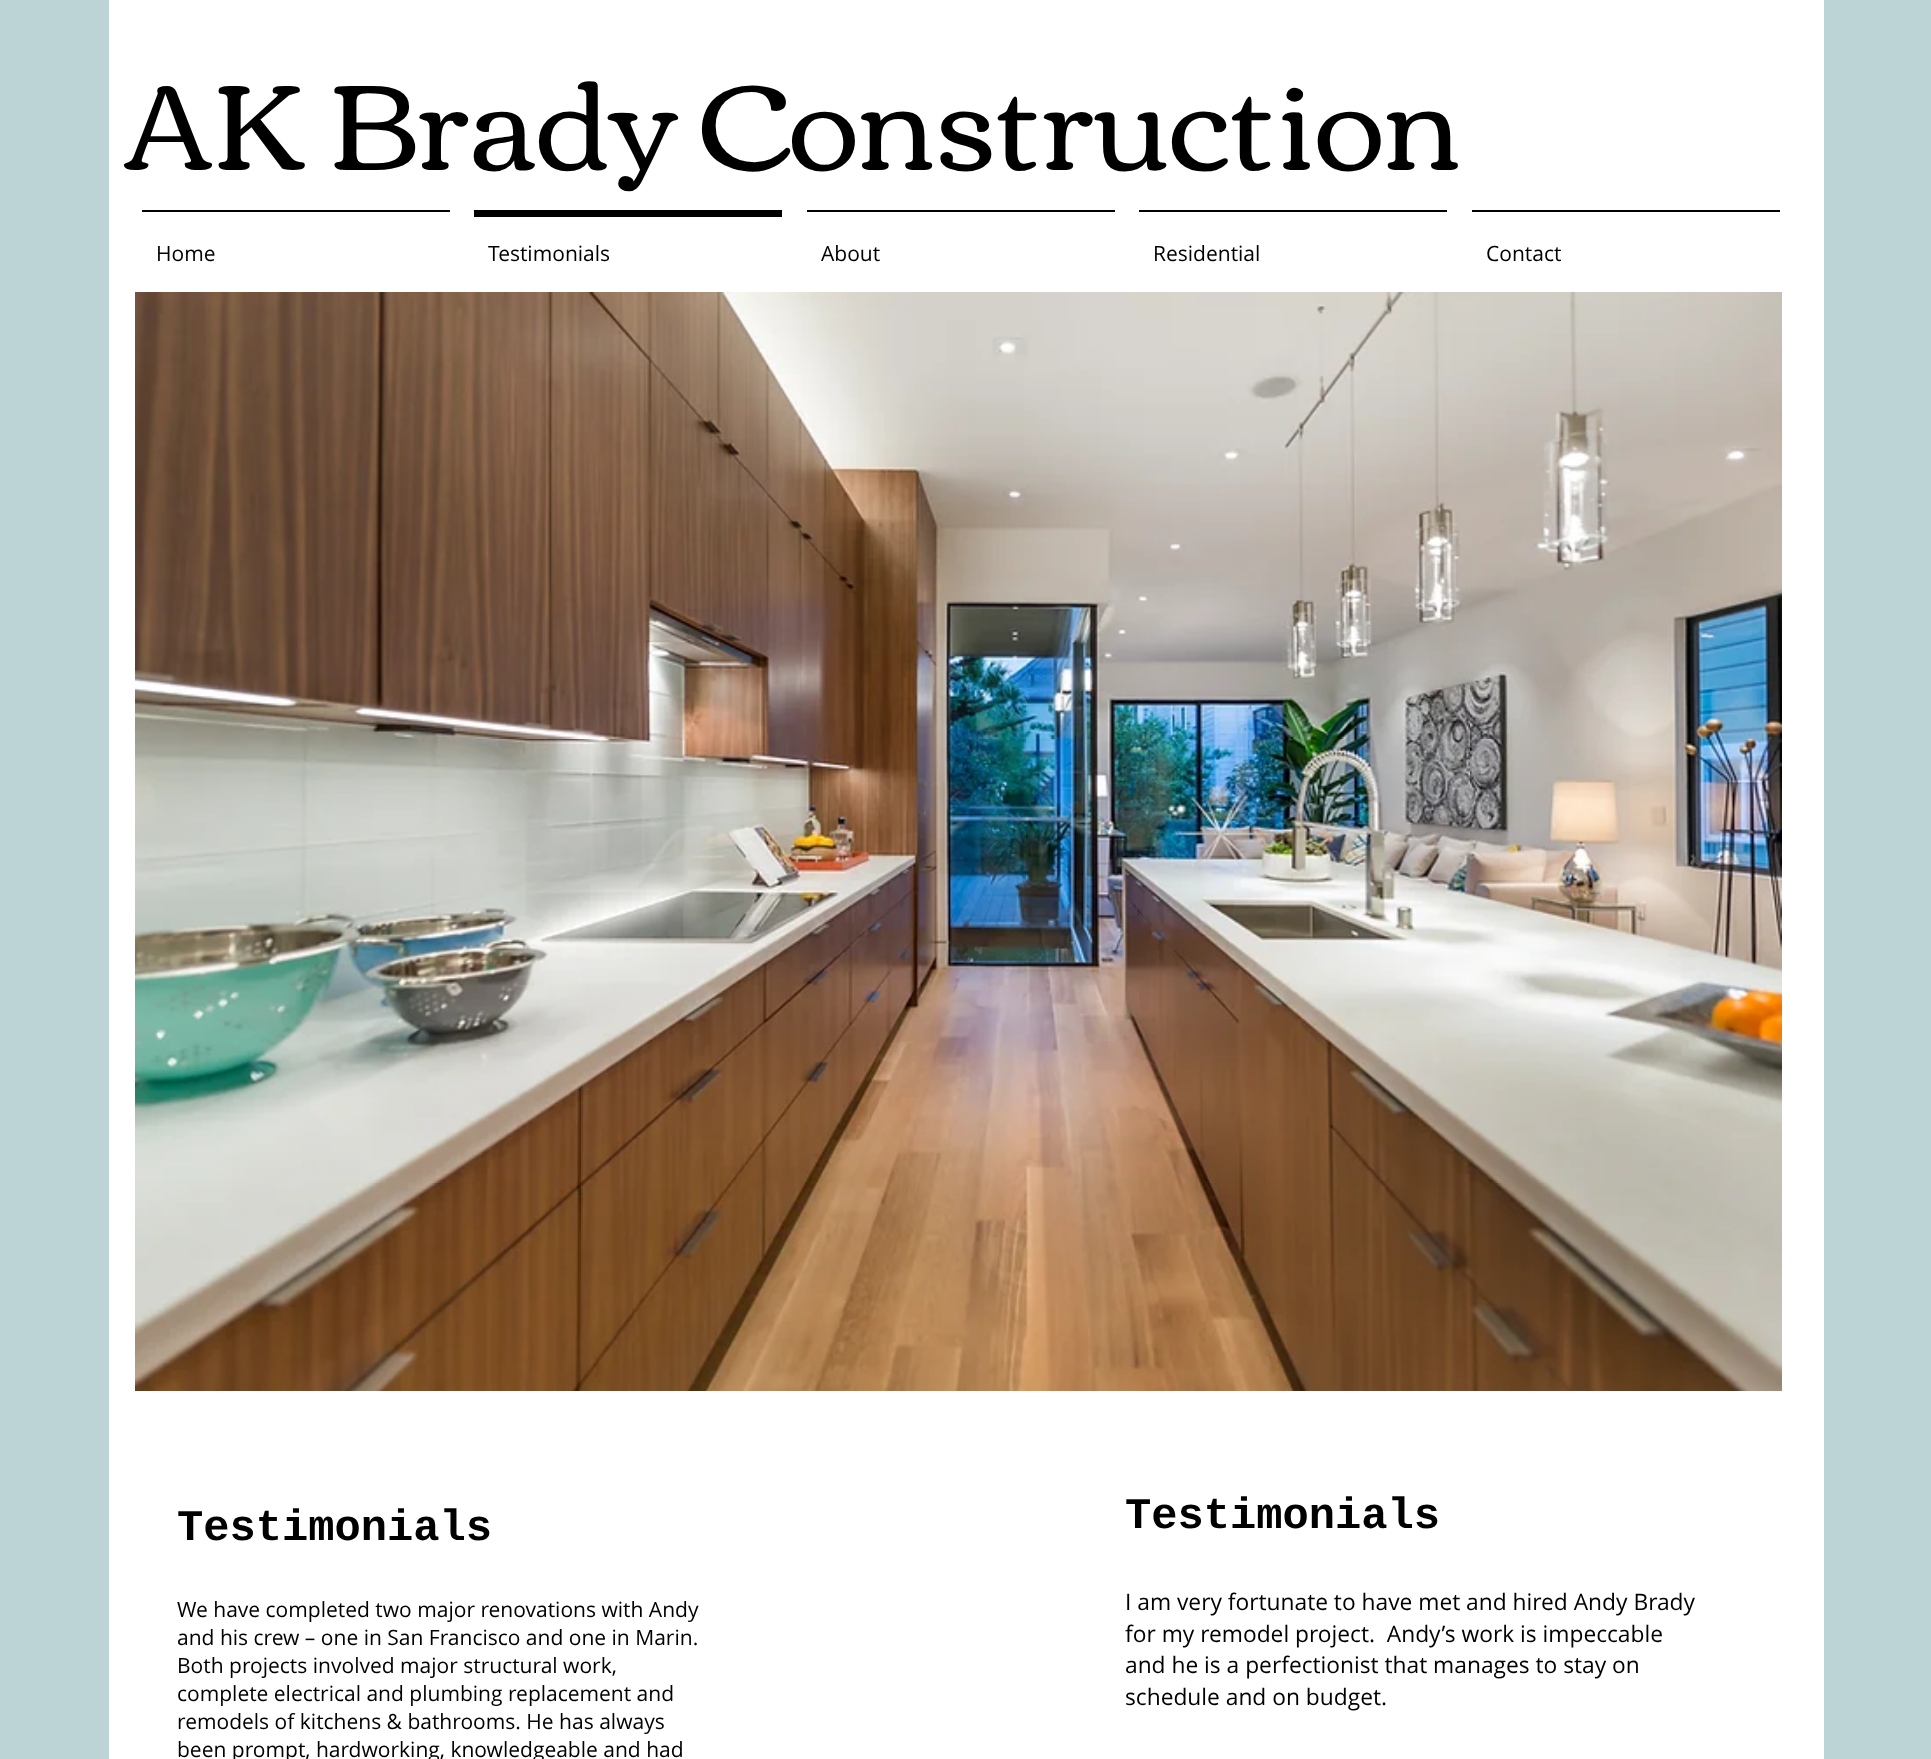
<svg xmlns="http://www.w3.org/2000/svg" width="1931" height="1759">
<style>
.a{font:122.5px Corben;fill:#000}
.b{font:21px Open Sans;fill:#000}
.c{font:bold 43.75px Liberation Mono;fill:#000}
.d{font:22.75px Open Sans;fill:#000}
</style>
<rect width="100%" height="100%" fill="#bdd4d6"/>
<path fill="#fff" d="M109 0h1715v1759H109z"/>
<path fill="#000" d="M142 210h308v2H142z"/>
<path fill="#000" d="M474 210h308v7H474z"/>
<path fill="#000" d="M807 210h308v2H807z"/>
<path fill="#000" d="M1139 210h308v2H1139z"/>
<path fill="#000" d="M1472 210h308v2H1472z"/>
<image href="1.png" x="135" y="292" width="1647" height="1099"/>
<text class="a" x="124" y="170">AK Brady Construction</text>
<text class="b" x="156" y="261">Home</text>
<text class="b" x="488" y="261">Testimonials</text>
<text class="b" x="821" y="261">About</text>
<text class="b" x="1153" y="261">Residential</text>
<text class="b" x="1486" y="261">Contact</text>
<text class="c" x="177" y="1540">Testimonials</text>
<text class="c" x="1125" y="1528">Testimonials</text>
<text class="b" x="177" y="1617">We have completed two major renovations with Andy</text>
<text class="b" x="177" y="1645">and his crew – one in San Francisco and one in Marin.</text>
<text class="b" x="177" y="1673">Both projects involved major structural work,</text>
<text class="b" x="177" y="1701">complete electrical and plumbing replacement and</text>
<text class="b" x="177" y="1729">remodels of kitchens &amp; bathrooms. He has always</text>
<text class="b" x="177" y="1757">been prompt, hardworking, knowledgeable and had</text>
<text class="d" x="1125" y="1610">I am very fortunate to have met and hired Andy Brady</text>
<text class="d" xml:space="preserve" x="1125" y="1642">for my remodel project.  Andy’s work is impeccable</text>
<text class="d" x="1125" y="1673">and he is a perfectionist that manages to stay on</text>
<text class="d" x="1125" y="1705">schedule and on budget.</text>
</svg>
